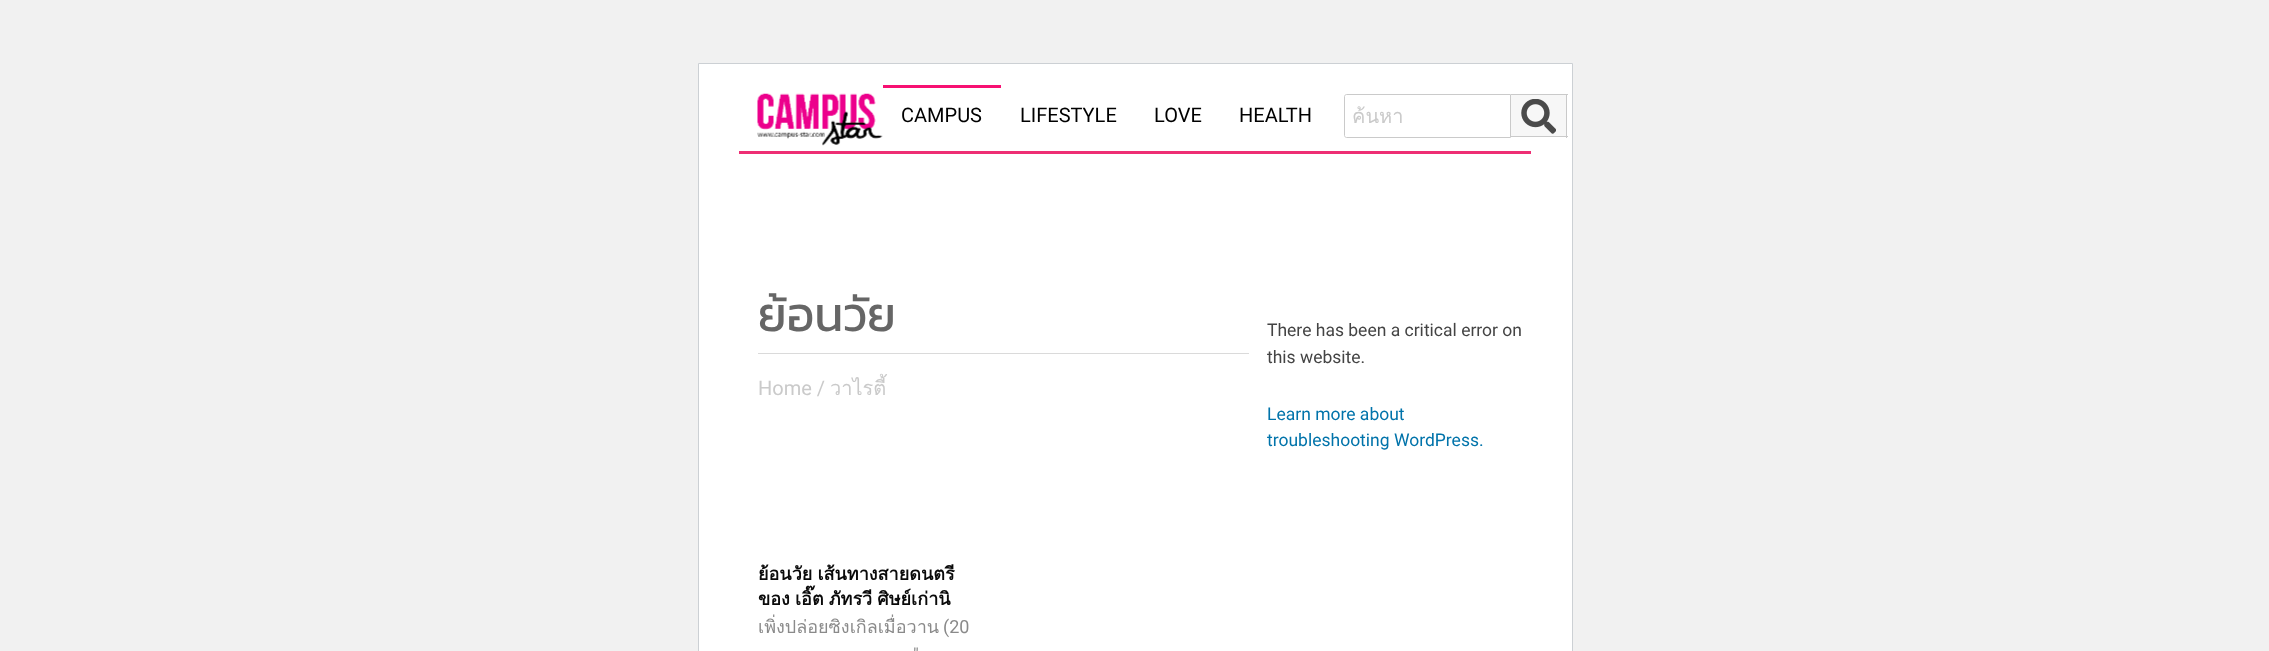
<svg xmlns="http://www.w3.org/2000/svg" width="2269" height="651">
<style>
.a{font:20px Roboto;fill:#000}
.b{font:20px Loma;fill:#cacaca}
.c{font:48px Kanit;fill:#666}
.d{font:20px Roboto;fill:#cacaca}
.e{font:bold 18px Loma;fill:#0a0a0a}
.f{font:18px Loma;fill:#8a8a8a}
.g{font:18px Roboto;fill:#8a8a8a}
.h{font:17.5px Roboto;fill:#444}
.i{font:17.5px Roboto;fill:#0073aa}
</style>
<defs>
<clipPath id="clip1"><path d="M1353 100h145v31H1353z"/></clipPath>
<clipPath id="clip2"><path d="M758 561h226v48H758z"/></clipPath>
<clipPath id="clip3"><path d="M758 614h226v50H758z"/></clipPath>
</defs>
<rect width="100%" height="100%" fill="#f1f1f1"/>
<path fill="#fff" stroke="#ccd0d4" d="M698.5 63.5h874v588H698.5z"/>
<path fill="#ee2f74" d="M739 151h792v3H739z"/>
<image href="1.png" x="757" y="93" width="126" height="53"/>
<path fill="#f71072" d="M883 85h118v3H883z"/>
<path fill="none" stroke="#cacaca" d="M1346.5 94.5h164v43h-164c-1 0-2-1-2-2v-39c0-1 1-2 2-2z"/>
<path fill="#f7f7f7" d="M1511 95h55v41H1511z"/>
<path fill="#cacaca" d="M1511 94h57v1H1511z"/>
<path fill="#cacaca" d="M1566 94h1v44H1566z"/>
<path fill="#cacaca" d="M1511 136h57v1H1511z"/>
<image href="2.png" x="1521" y="99" width="35" height="35"/>
<path fill="#dadada" d="M758 353h491v1H758z"/>
<text class="a" x="901" y="122">CAMPUS</text>
<text class="a" x="1020" y="122">LIFESTYLE</text>
<text class="a" x="1154" y="122">LOVE</text>
<text class="a" x="1239" y="122">HEALTH</text>
<g clip-path="url(#clip1)">
<text class="b" x="1352" y="123">ค้นหา</text>
</g>
<text class="c" x="758" y="331">ย้อนวัย</text>
<text class="d" x="758" y="395">Home /</text>
<text class="b" x="830" y="395">วาไรตี้</text>
<g clip-path="url(#clip2)">
<text class="e" x="758" y="580" word-spacing="-1">ย้อนวัย เส้นทางสายดนตรี</text>
</g>
<text class="e" x="758" y="605" word-spacing="-1">ของ เอิ๊ต ภัทรวี ศิษย์เก่านิ</text>
<g clip-path="url(#clip3)">
<text class="f" x="758" y="633">เพิ่งปล่อยซิงเกิลเมื่อวาน</text>
</g>
<text class="g" x="943" y="633">(20</text>
<text class="g" x="913" y="661">"</text>
<text class="h" x="1267" y="336">There has been a critical error on</text>
<text class="h" x="1267" y="363">this website.</text>
<text class="i" x="1267" y="420">Learn more about</text>
<text class="i" x="1267" y="446">troubleshooting WordPress.</text>
</svg>
